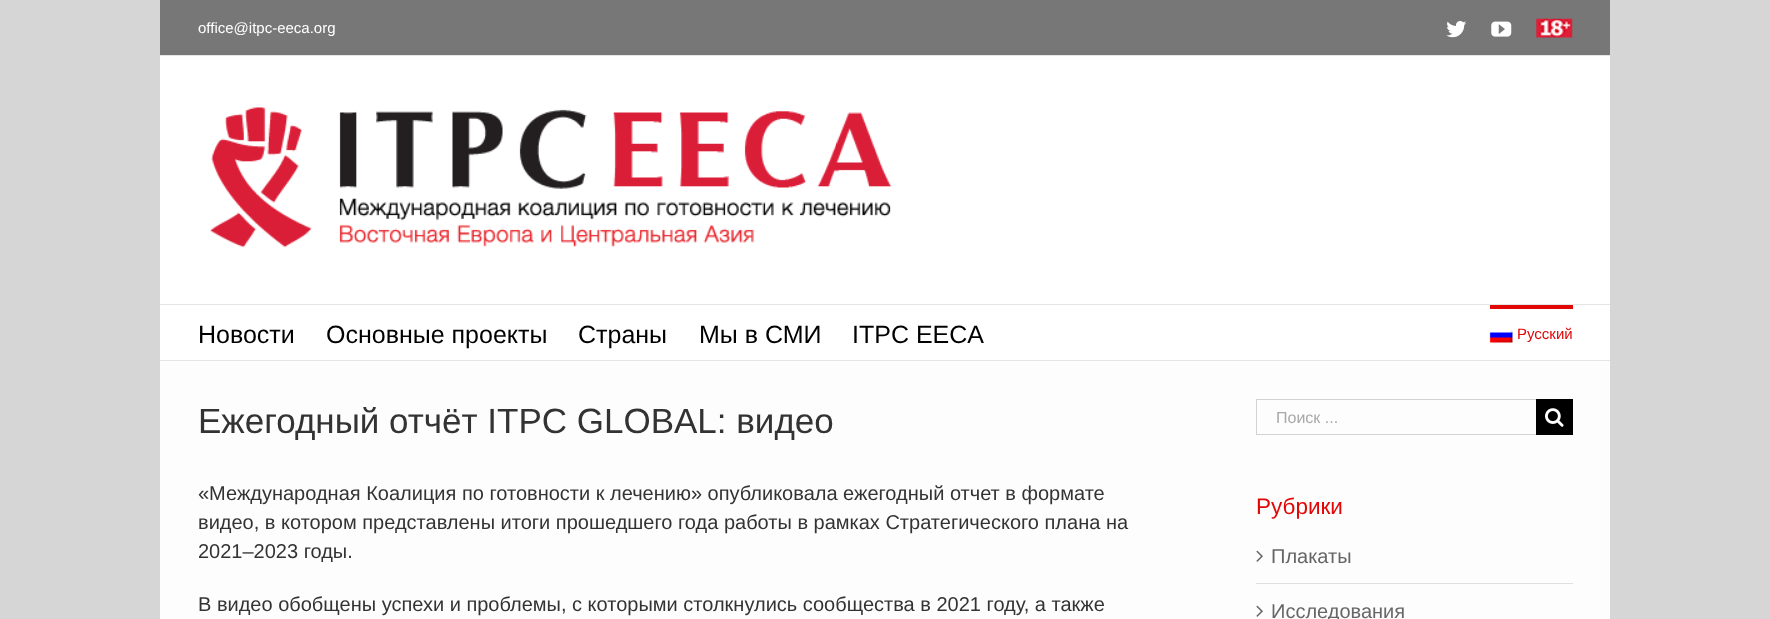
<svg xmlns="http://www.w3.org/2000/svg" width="1770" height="619">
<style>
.a{font:15px Liberation Sans;fill:#fff}
.b{font:25px Liberation Sans;fill:#000}
.c{font:15px Liberation Sans;fill:#e10707}
.d{font:35px Liberation Sans;fill:#333}
.e{font:20px Liberation Sans;fill:#333}
.f{font:16px Liberation Sans;fill:#aaa9a9}
.g{font:22.5px Liberation Sans;fill:#e10707}
.h{font:20px Liberation Sans;fill:#666}
</style>
<rect width="100%" height="100%" fill="#d7d6d6"/>
<path fill="#777" d="M160 0h1450v55H160z"/>
<path fill="#e5e5e5" d="M160 55h1450v1H160z"/>
<image href="1.png" x="1446" y="21" width="20" height="17"/>
<image href="2.png" x="1491" y="21" width="21" height="16"/>
<image href="3.png" x="1536" y="18" width="37" height="20"/>
<path fill="#fff" d="M160 56h1450v248H160z"/>
<path fill="#e5e5e5" d="M160 304h1450v1H160z"/>
<image href="4.png" x="210" y="107" width="682" height="141"/>
<path fill="#fff" d="M160 305h1450v55H160z"/>
<path fill="#e5e5e5" d="M160 360h1450v1H160z"/>
<path fill="#e10707" d="M1490 305h83v4H1490z"/>
<image href="5.png" x="1489" y="330" width="24" height="13"/>
<path fill="#fdfdfd" d="M160 361h1450v258H160z"/>
<path fill="#d2d2d2" d="M1256 399h280v1H1256z"/>
<path fill="#d2d2d2" d="M1256 434h280v1H1256z"/>
<path fill="#d2d2d2" d="M1256 399h1v36H1256z"/>
<path fill="#000" d="M1536 399h37v36H1536z"/>
<image href="6.png" x="1545" y="408" width="19" height="19"/>
<path fill="#e0dede" d="M1256 583h317v1H1256z"/>
<image href="7.png" x="1256" y="550" width="7" height="12"/>
<image href="7.png" x="1256" y="605" width="7" height="12"/>
<text class="a" x="198" y="33">office@itpc-eeca.org</text>
<text class="b" x="198" y="343">Новости</text>
<text class="b" x="326" y="343">Основные проекты</text>
<text class="b" x="578" y="343">Страны</text>
<text class="b" x="699" y="343">Мы в СМИ</text>
<text class="b" x="852" y="343">ITPC EECA</text>
<text class="c" x="1517" y="339">Русский</text>
<text class="d" x="198" y="433">Ежегодный отчёт ITPC GLOBAL: видео</text>
<text class="e" x="198" y="500">«Международная Коалиция по готовности к лечению» опубликовала ежегодный отчет в формате</text>
<text class="e" x="198" y="529">видео, в котором представлены итоги прошедшего года работы в рамках Стратегического плана на</text>
<text class="e" x="198" y="558">2021–2023 годы.</text>
<text class="e" x="198" y="611">В видео обобщены успехи и проблемы, с которыми столкнулись сообщества в 2021 году, а также</text>
<text class="f" x="1276" y="423">Поиск ...</text>
<text class="g" x="1256" y="514">Рубрики</text>
<text class="h" x="1271" y="563">Плакаты</text>
<text class="h" x="1271" y="618">Исследования</text>
</svg>
